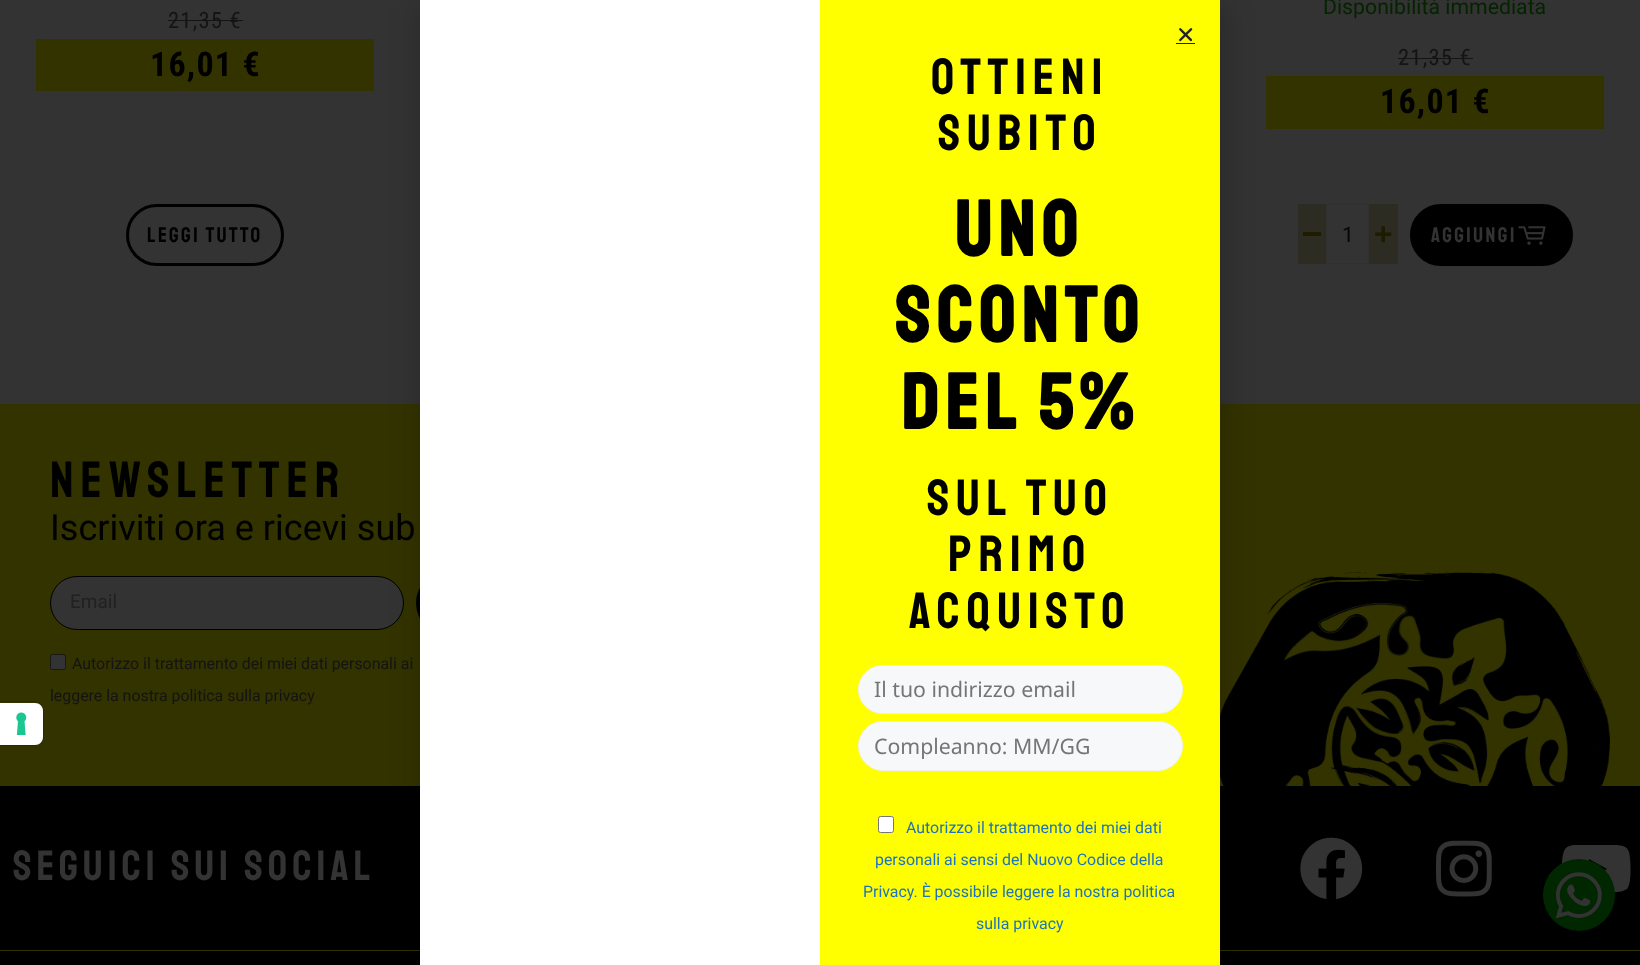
<svg xmlns="http://www.w3.org/2000/svg" width="1640" height="965">
<style>
.a{font:22.5px Roboto Condensed;letter-spacing:1.25px;fill:#141414}
.b{font:bold 34px Roboto Condensed;letter-spacing:1.25px;fill:#000}
.c{font:21.25px Staatliches;letter-spacing:2.5px;fill:#000}
.d{font:21.25px Roboto;fill:#042400}
.e{font:21.25px Roboto;fill:#070707}
.f{font:21.25px Staatliches;letter-spacing:2.5px;fill:#333}
.g{font:51px Staatliches;letter-spacing:6.9px;fill:#000}
.h{font:36.1px Roboto;fill:#000}
.i{font:19px Roboto;fill:#212121}
.j{font:15.9px Roboto;fill:#141414}
.k{font:42.5px Staatliches;letter-spacing:5px;fill:#333}
.l{font:bold 78.5px Staatliches;letter-spacing:6.9px;fill:#000}
.m{font:21.25px Noto Sans;fill:#757575}
.n{font:15.9px Roboto;fill:#1e73be}
</style>
<rect width="100%" height="100%" fill="#333"/>
<path fill="#141414" d="M168 20h75v1H168z"/>
<path fill="#330" d="M36 39h338v52H36z"/>
<rect fill="none" stroke="#000" stroke-width="3" x="127.5" y="205.5" width="155" height="59" rx="29.5"/>
<path fill="#141414" d="M1398 58h75v1H1398z"/>
<path fill="#330" d="M1266 76h338v53H1266z"/>
<path fill="#2d2c23" d="M1298 204h28v60H1298z"/>
<path fill="#1d1c00" d="M1303 232h18v4H1303z"/>
<path fill="none" stroke="#303030" d="M1326.5 204.5h42v59H1326.5z"/>
<path fill="#2d2c23" d="M1369 204h29v60H1369z"/>
<image href="1.png" x="1375" y="226" width="17" height="17"/>
<rect fill="#000" stroke="#000" stroke-width="3" x="1411.5" y="205.5" width="160" height="59" rx="29.5"/>
<image href="2.png" x="1518" y="226" width="28" height="19"/>
<path fill="#330" d="M0 404h1640v382H0z"/>
<rect fill="#333" stroke="#000" x="50.5" y="576.5" width="353" height="53" rx="26.5"/>
<rect fill="#000" x="416" y="571" width="234" height="64" rx="32"/>
<rect fill="#333" stroke="#181818" x="50.5" y="654.5" width="15" height="15" rx="2"/>
<image href="3.png" x="1220" y="571" width="390" height="215"/>
<path fill="#000" d="M0 786h1640v164H0z"/>
<path fill="#330" d="M0 950h1640v1H0z"/>
<image href="4.png" x="1300" y="837" width="63" height="62"/>
<image href="5.png" x="1436" y="840" width="56" height="57"/>
<path fill="#333" d="M1629 852c2 8 3 32-2 37l-4 2c-9 3-49 2-54 0c-3-1-5-3-5-6c-2-6-2-15-2-22c1-10 1-17 12-18h15h21c6 0 17-1 19 7zm-40 27l18-10l-18-10z"/>
<path fill="#000" d="M0 951h1640v14H0z"/>
<circle fill="#012700" cx="1579" cy="895" r="36"/>
<image href="6.png" x="1555" y="872" width="47" height="47"/>
<path fill="#00000033" filter="blur(14.5px)" d="M419 6h807v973H419z"/>
<path fill="#fff" d="M420 0h400v965H420z"/>
<path fill="#ff0" d="M820 0h400v965H820z"/>
<image href="7.png" x="1179" y="28" width="14" height="14"/>
<path fill="#222" d="M1176 43h19v1H1176z"/>
<rect fill="#f7f8f9" stroke="#f0f0f0" x="858.5" y="665.5" width="324" height="48" rx="24"/>
<rect fill="#f7f8f9" stroke="#f0f0f0" x="858.5" y="721.5" width="324" height="49" rx="24.5"/>
<rect fill="#fff" stroke="#767676" x="878.5" y="816.5" width="15" height="16" rx="2"/>
<path fill="none" stroke="#2b2b00" d="M-.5 701.5h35.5c4.5 0 8.5 4 8.5 8.5v27c0 4.5-4 8.5-8.5 8.5h-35.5z"/>
<path fill="#fff" d="M0 703h35c4.5 0 8 3.5 8 8v26c0 4.5-3.5 8-8 8h-35z"/>
<image href="8.png" x="16" y="712" width="11" height="23"/>
<text class="a" x="168" y="28">21,35 €</text>
<text class="b" x="150" y="76">16,01 €</text>
<text class="c" x="147" y="242">LEGGI TUTTO</text>
<text class="d" x="1323" y="14">Disponibilità immediata</text>
<text class="a" x="1398" y="65">21,35 €</text>
<text class="b" x="1380" y="113">16,01 €</text>
<text class="e" x="1342" y="242">1</text>
<text class="f" x="1431" y="242">AGGIUNGI</text>
<text class="g" x="50" y="497">Newsletter</text>
<text class="h" x="50" y="540">Iscriviti ora e ricevi sub</text>
<text class="i" x="70" y="608">Email</text>
<text class="j" x="72" y="669">Autorizzo il trattamento dei miei dati personali ai</text>
<text class="j" x="50" y="701">leggere la nostra politica sulla privacy</text>
<text class="k" x="13" y="880">Seguici sui social</text>
<text class="g" x="931" y="94">Ottieni</text>
<text class="g" x="938" y="150">subito</text>
<text class="l" x="955" y="256">uno</text>
<text class="l" x="895" y="342">sconto</text>
<text class="l" x="901" y="429">del 5%</text>
<text class="g" x="927" y="515">sul tuo</text>
<text class="g" x="948" y="571">primo</text>
<text class="g" x="909" y="628">acquisto</text>
<text class="m" x="874" y="697">Il tuo indirizzo email</text>
<text class="m" x="874" y="754">Compleanno: MM/GG</text>
<text class="n" x="906" y="833">Autorizzo il trattamento dei miei dati</text>
<text class="n" x="875" y="865">personali ai sensi del Nuovo Codice della</text>
<text class="n" x="863" y="897">Privacy. È possibile leggere la nostra politica</text>
<text class="n" x="976" y="929">sulla privacy</text>
</svg>
